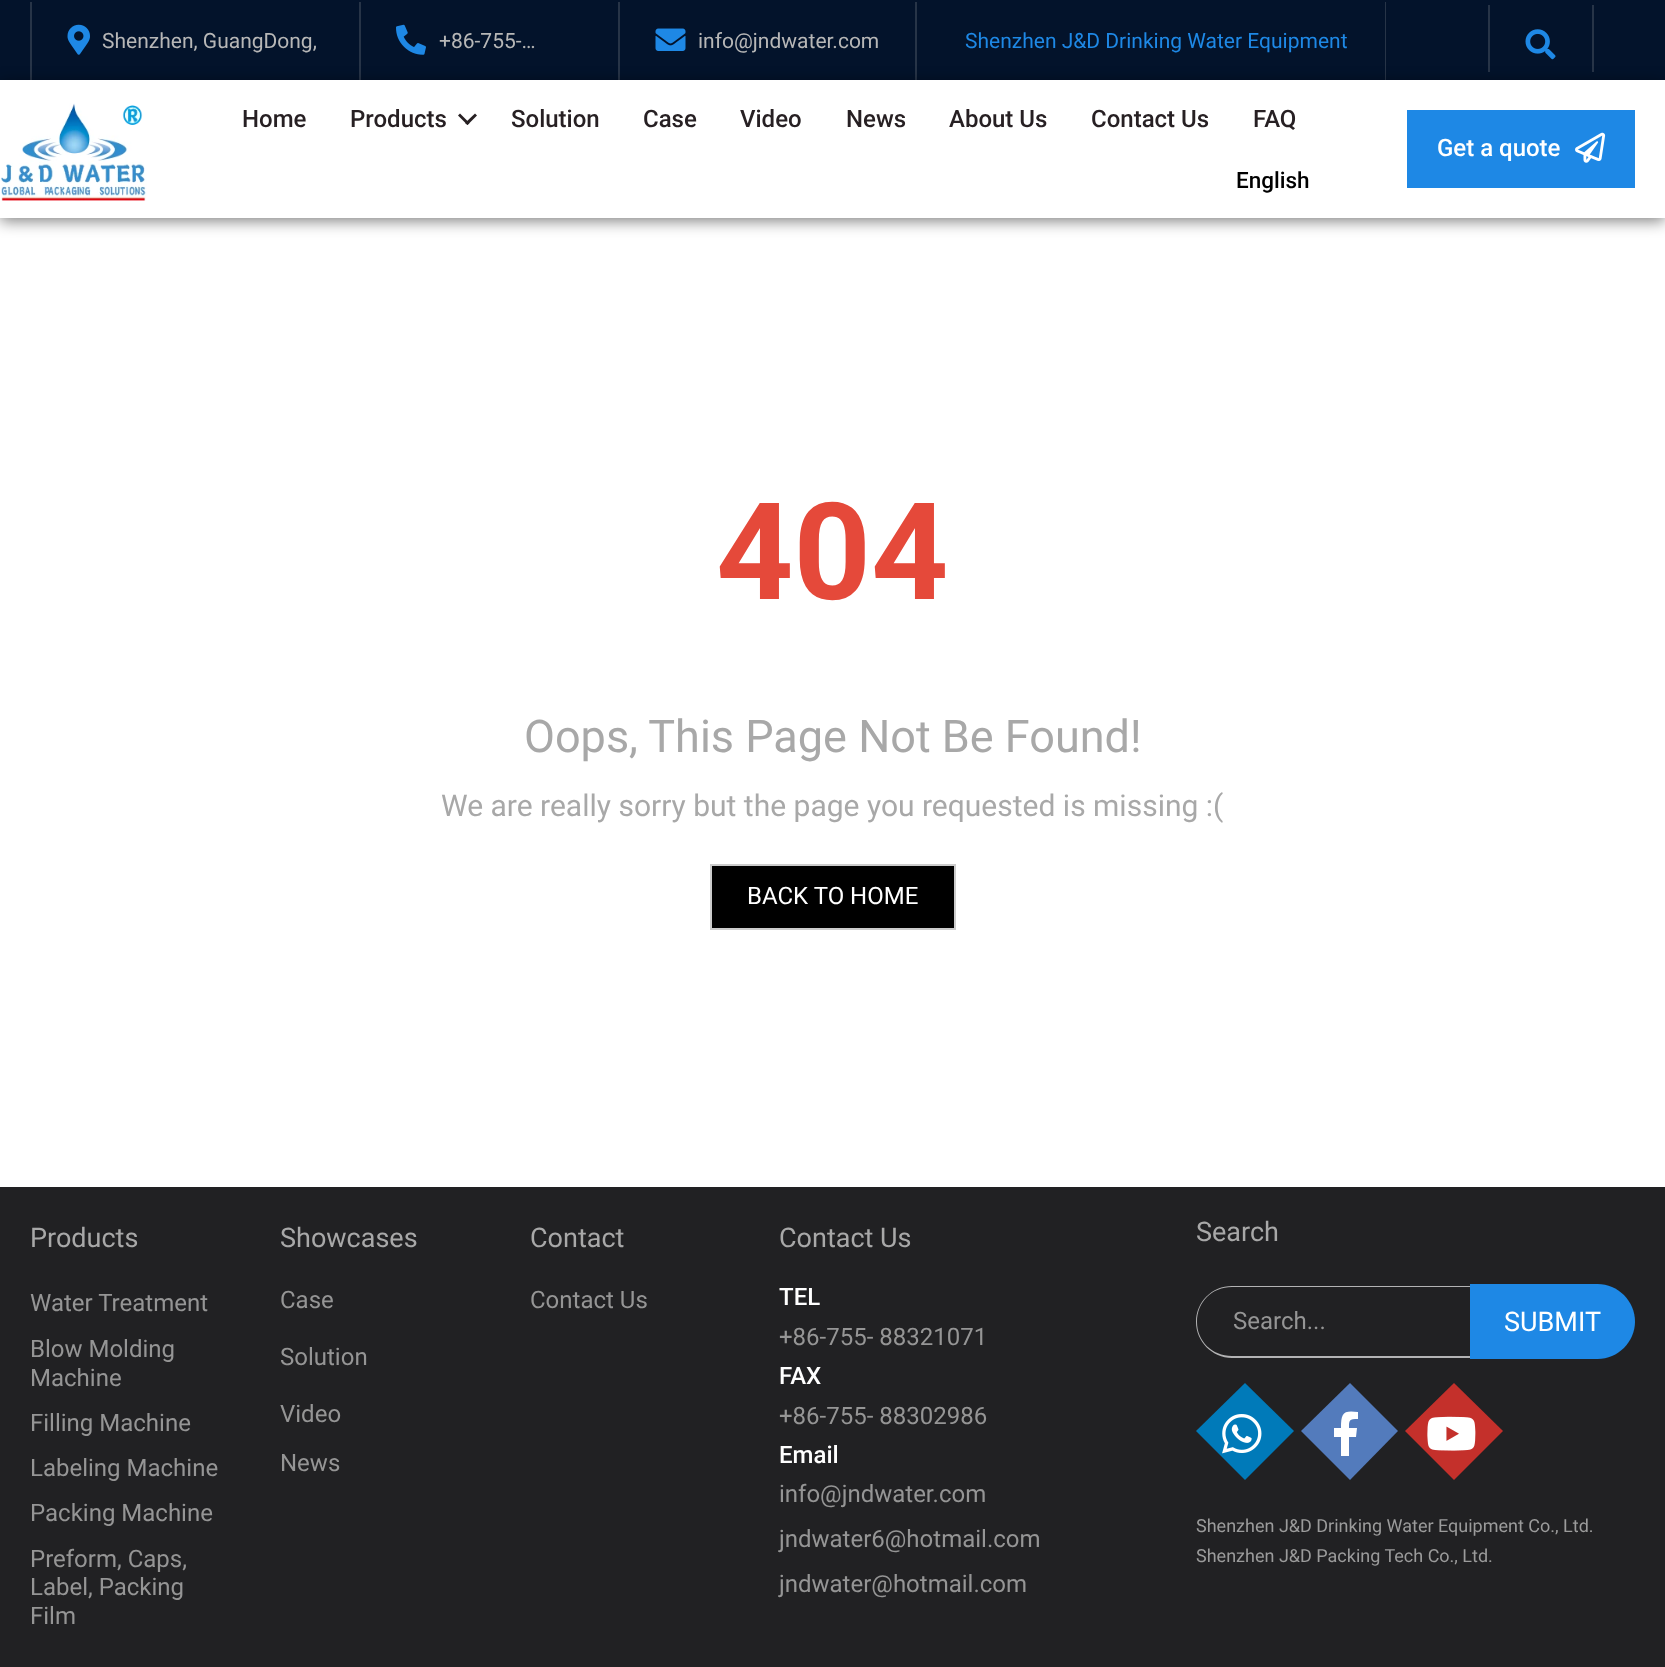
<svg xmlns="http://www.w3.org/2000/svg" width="1665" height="1667">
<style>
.a{font:21px Roboto;fill:#b7b7b7}
.b{font:21px Roboto;fill:#1e88e5}
.c{font:500 24px Roboto;fill:#272023}
.d{font:500 22.5px Roboto;fill:#000}
.e{font:500 24px Roboto;fill:#fff}
.f{font:bold 135px Roboto;fill:#e5493a}
.g{font:45px Roboto;fill:#a8a8a8}
.h{font:30px Roboto;fill:#a8a8a8}
.i{font:24px Roboto;fill:#fff}
.j{font:27px Roboto;fill:#a8a8a8}
.k{font:24px Roboto;fill:#959595}
.l{font:27px Roboto;fill:#fff}
.m{font:18px Roboto;fill:#9b9b9b}
</style>
<rect width="100%" height="100%" fill="#fff"/>
<path fill="#03132b" d="M0 0h1665v80H0z"/>
<path fill="#273447" d="M30 2h2v78H30z"/>
<image href="1.png" x="67" y="24" width="23" height="31"/>
<path fill="#273447" d="M359 2h2v78H359z"/>
<image href="2.png" x="396" y="24" width="30" height="31"/>
<path fill="#273447" d="M618 2h2v78H618z"/>
<image href="3.png" x="655" y="28" width="31" height="23"/>
<path fill="#273447" d="M1385 2h1v78H1385z"/>
<path fill="#273447" d="M915 2h2v78H915z"/>
<path fill="#273447" d="M1592 5h2v67H1592z"/>
<path fill="#273447" d="M1488 5h2v67H1488z"/>
<image href="4.png" x="1525" y="29" width="31" height="31"/>
<path fill="#00000080" filter="blur(7.5px)" d="M0 83h1665v138H0z"/>
<path fill="#fff" d="M0 80h1665v138H0z"/>
<image href="5.png" x="1" y="103" width="146" height="98"/>
<path fill="#272023" d="M475 113.5l2 2l-9.5 9.5l-2.5-2z"/>
<path fill="#272023" d="M460 113.5l9.5 9.5l-2 2l-9.5-9.5z"/>
<path fill="#1e88e5" d="M1407 110h228v78H1407z"/>
<image href="6.png" x="1575" y="132" width="31" height="31"/>
<path fill="#000" stroke="#ccc" stroke-width="2" d="M711 865h244v64H711z"/>
<path fill="#212123" d="M0 1187h1665v480H0z"/>
<path fill="#b3b3b4" fill-rule="evenodd" d="M1232 1286h238v72h-238c-20 0-36-17-36-36c0-20 16-36 36-36zm0 1h238v69h-238c-20 0-35-15-35-34c0-20 15-35 35-35z"/>
<path fill="#1e88e5" d="M1470 1284h127.5c20.5 0 37.5 17 37.5 37.5c0 20.5-17 37.5-37.5 37.5h-127.5z"/>
<path fill="#007ab9" d="M1245 1383l49 48l-49 49l-49-49z"/>
<image href="7.png" x="1222" y="1414" width="40" height="40"/>
<path fill="#537bbc" d="M1350 1383l48 48l-48 49l-49-49z"/>
<path fill="#fff" d="M1356 1437h-7v19h-8v-19h-7v-9h7c0-15 2-18 17-16v7c-9 0-9 1-9 9h8z"/>
<path fill="#c4302b" d="M1454 1383l49 48l-49 49l-49-49z"/>
<image href="8.png" x="1427" y="1416" width="49" height="35"/>
<text class="a" x="102" y="48">Shenzhen, GuangDong,</text>
<text class="a" x="439" y="48">+86-755-…</text>
<text class="a" x="698" y="48">info@jndwater.com</text>
<text class="b" x="965" y="48">Shenzhen J&amp;D Drinking Water Equipment</text>
<text class="c" x="242" y="127">Home</text>
<text class="c" x="350" y="127">Products</text>
<text class="c" x="511" y="127">Solution</text>
<text class="c" x="643" y="127">Case</text>
<text class="c" x="740" y="127">Video</text>
<text class="c" x="846" y="127">News</text>
<text class="c" x="949" y="127">About Us</text>
<text class="c" x="1091" y="127">Contact Us</text>
<text class="c" x="1253" y="127">FAQ</text>
<text class="d" x="1236" y="188">English</text>
<text class="e" x="1437" y="156">Get a quote</text>
<text class="f" x="716" y="599">404</text>
<text class="g" x="524" y="752">Oops, This Page Not Be Found!</text>
<text class="h" x="441" y="816">We are really sorry but the page you requested is missing :(</text>
<text class="i" x="747" y="904">BACK TO HOME</text>
<text class="j" x="30" y="1247">Products</text>
<text class="k" x="30" y="1311">Water Treatment</text>
<text class="k" x="30" y="1357">Blow Molding</text>
<text class="k" x="30" y="1386">Machine</text>
<text class="k" x="30" y="1431">Filling Machine</text>
<text class="k" x="30" y="1476">Labeling Machine</text>
<text class="k" x="30" y="1521">Packing Machine</text>
<text class="k" x="30" y="1567">Preform, Caps,</text>
<text class="k" x="30" y="1595">Label, Packing</text>
<text class="k" x="30" y="1624">Film</text>
<text class="j" x="280" y="1247">Showcases</text>
<text class="k" x="280" y="1308">Case</text>
<text class="k" x="280" y="1365">Solution</text>
<text class="k" x="280" y="1422">Video</text>
<text class="k" x="280" y="1471">News</text>
<text class="j" x="530" y="1247">Contact</text>
<text class="k" x="530" y="1308">Contact Us</text>
<text class="j" x="779" y="1247">Contact Us</text>
<text class="e" x="779" y="1305">TEL</text>
<text class="k" x="779" y="1345">+86-755- 88321071</text>
<text class="e" x="779" y="1384">FAX</text>
<text class="k" x="779" y="1424">+86-755- 88302986</text>
<text class="e" x="779" y="1463">Email</text>
<text class="k" x="779" y="1502">info@jndwater.com</text>
<text class="k" x="779" y="1547">jndwater6@hotmail.com</text>
<text class="k" x="779" y="1592">jndwater@hotmail.com</text>
<text class="j" x="1196" y="1241">Search</text>
<text class="k" x="1233" y="1329">Search...</text>
<text class="l" x="1504" y="1331">SUBMIT</text>
<text class="m" x="1196" y="1532">Shenzhen J&amp;D Drinking Water Equipment Co., Ltd.</text>
<text class="m" x="1196" y="1562">Shenzhen J&amp;D Packing Tech Co., Ltd.</text>
</svg>
